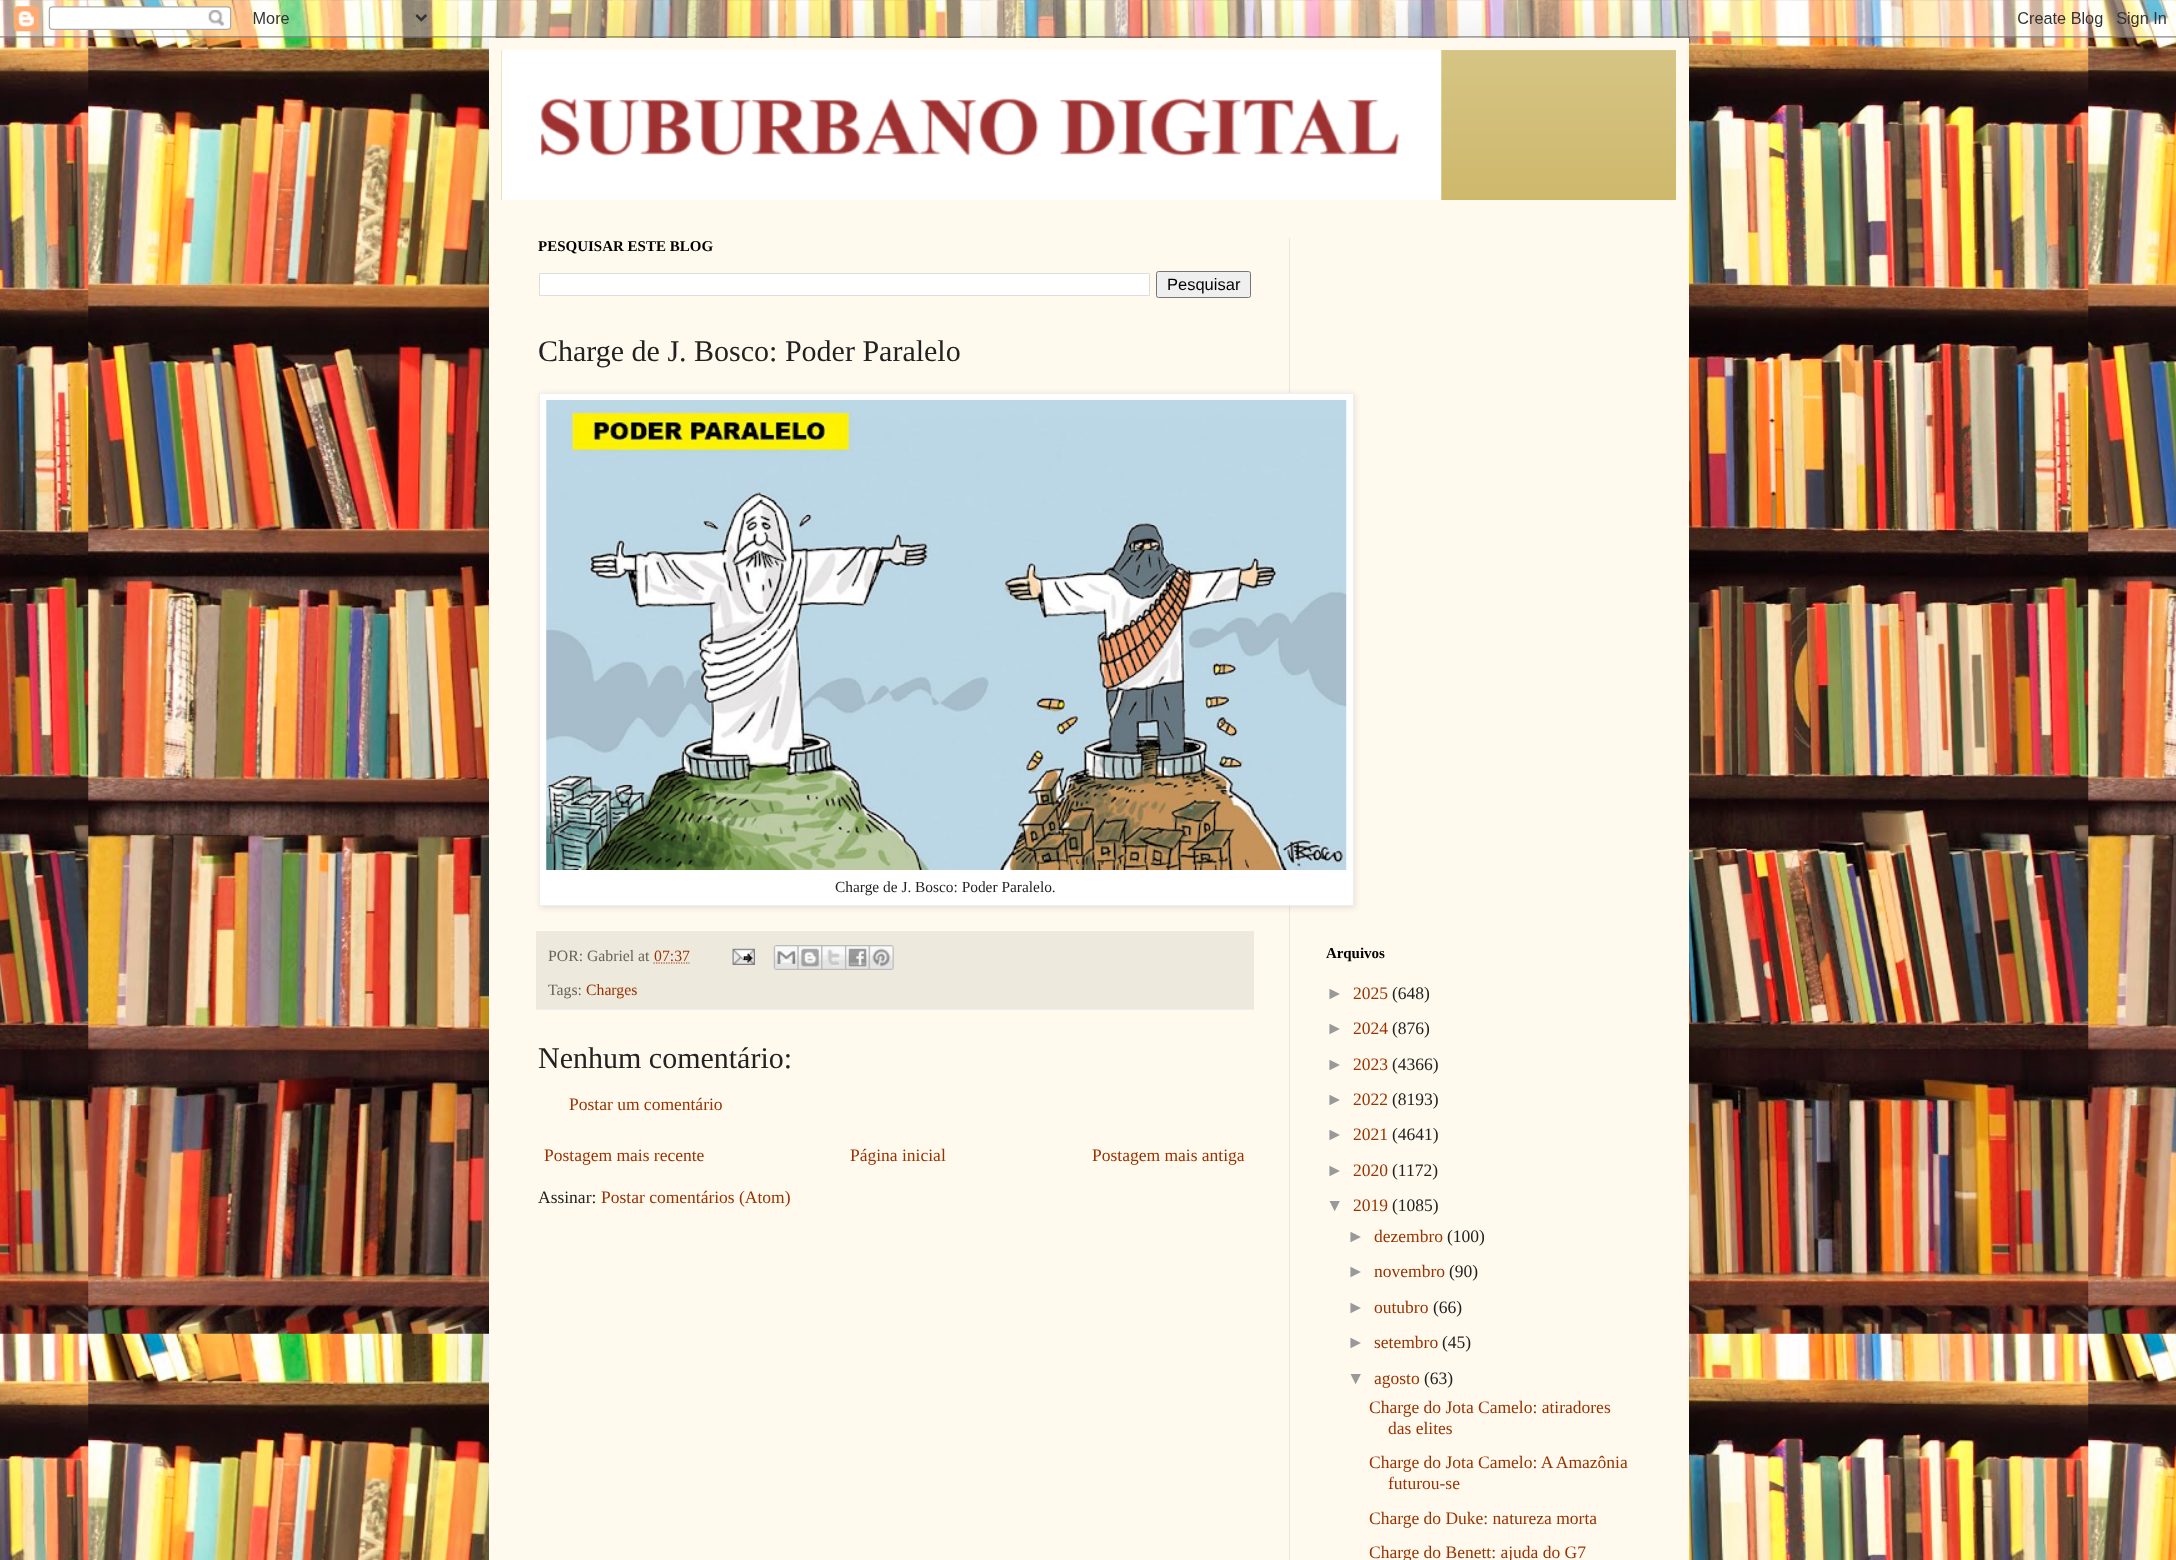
<svg xmlns="http://www.w3.org/2000/svg" width="2176" height="1560">
<style>
.a{font:bold 15px Liberation Serif;fill:#000}
.b{font:16.5px Liberation Sans;fill:#000}
.c{font:30px Liberation Serif;fill:#222}
.d{font:15.4px Liberation Serif;fill:#222}
.e{font:15.75px Liberation Serif;fill:#666555}
.f{font:15.75px Liberation Serif;fill:#930}
.g{font:17.5px Liberation Serif;fill:#930}
.h{font:17.5px Liberation Serif;fill:#222}
.i{font:17.5px Liberation Sans;fill:#999}
</style>
<rect width="100%" height="100%" fill="#fff"/>
<image href="1.png" x="0" y="0" width="2176" height="1560"/>
<path fill="#00000026" filter="blur(25px)" d="M489 38h1200v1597H489z"/>
<image href="2.png" x="0" y="0" width="2176" height="38"/>
<path fill="#fff9ee" d="M489 38h1200v1522H489z"/>
<path fill="#ccb666" d="M501 50h1175v150H501z"/>
<image href="3.png" x="501" y="50" width="1175" height="150"/>
<image href="4.png" x="501" y="50" width="941" height="150"/>
<path fill="#eee5dd" d="M1289 238h1v1322H1289z"/>
<path fill="#fff" stroke="#ddd" d="M539.5 273.5h610v22H539.5z"/>
<rect fill="#efefef" stroke="#767676" x="1156.5" y="271.5" width="94" height="26" rx="2"/>
<path fill="#0000001a" filter="blur(3px)" d="M540 394h815v514H540z"/>
<path fill="#fff" stroke="#eee" d="M539.5 393.5h814v512H539.5z"/>
<image href="5.png" x="546" y="400" width="801" height="470"/>
<path fill="#eee9dd" d="M536 931h718v78H536z"/>
<path fill="#eee" d="M536 1009h718v1H536z"/>
<path fill="none" stroke="#930" stroke-width="1.2" stroke-dasharray="1.25 1.25" d="M653.5 963h36"/>
<image href="6.png" x="732" y="948" width="23" height="17"/>
<image href="7.png" x="773" y="945" width="25" height="25"/>
<image href="8.png" x="797" y="945" width="25" height="25"/>
<image href="9.png" x="821" y="945" width="24" height="25"/>
<image href="10.png" x="845" y="945" width="24" height="25"/>
<image href="11.png" x="868" y="945" width="26" height="25"/>
<text class="a" x="538" y="251">PESQUISAR ESTE BLOG</text>
<text class="b" x="1167" y="290">Pesquisar</text>
<text class="c" x="538" y="361">Charge de J. Bosco: Poder Paralelo</text>
<text class="d" x="835" y="892">Charge de J. Bosco: Poder Paralelo.</text>
<text class="e" x="548" y="961">POR: Gabriel at</text>
<text class="f" x="654" y="961">07:37</text>
<text class="e" x="548" y="995">Tags:</text>
<text class="f" x="586" y="995">Charges</text>
<text class="c" x="538" y="1068">Nenhum comentário:</text>
<text class="g" x="569" y="1110">Postar um comentário</text>
<text class="g" x="544" y="1161">Postagem mais recente</text>
<text class="g" x="850" y="1161">Página inicial</text>
<text class="g" x="1092" y="1161">Postagem mais antiga</text>
<text class="h" x="538" y="1203">Assinar:</text>
<text class="g" x="601" y="1203">Postar comentários (Atom)</text>
<text class="a" x="1326" y="958">Arquivos</text>
<text class="i" x="1326" y="999">►</text>
<text class="g" x="1353" y="999">2025</text>
<text class="h" x="1392" y="999">(648)</text>
<text class="i" x="1326" y="1034">►</text>
<text class="g" x="1353" y="1034">2024</text>
<text class="h" x="1392" y="1034">(876)</text>
<text class="i" x="1326" y="1070">►</text>
<text class="g" x="1353" y="1070">2023</text>
<text class="h" x="1392" y="1070">(4366)</text>
<text class="i" x="1326" y="1105">►</text>
<text class="g" x="1353" y="1105">2022</text>
<text class="h" x="1392" y="1105">(8193)</text>
<text class="i" x="1326" y="1140">►</text>
<text class="g" x="1353" y="1140">2021</text>
<text class="h" x="1392" y="1140">(4641)</text>
<text class="i" x="1326" y="1176">►</text>
<text class="g" x="1353" y="1176">2020</text>
<text class="h" x="1392" y="1176">(1172)</text>
<text class="i" x="1326" y="1211">▼</text>
<text class="g" x="1353" y="1211">2019</text>
<text class="h" x="1392" y="1211">(1085)</text>
<text class="i" x="1347" y="1242">►</text>
<text class="g" x="1374" y="1242">dezembro</text>
<text class="h" x="1447" y="1242">(100)</text>
<text class="i" x="1347" y="1277">►</text>
<text class="g" x="1374" y="1277">novembro</text>
<text class="h" x="1449" y="1277">(90)</text>
<text class="i" x="1347" y="1313">►</text>
<text class="g" x="1374" y="1313">outubro</text>
<text class="h" x="1433" y="1313">(66)</text>
<text class="i" x="1347" y="1348">►</text>
<text class="g" x="1374" y="1348">setembro</text>
<text class="h" x="1442" y="1348">(45)</text>
<text class="i" x="1347" y="1384">▼</text>
<text class="g" x="1374" y="1384">agosto</text>
<text class="h" x="1424" y="1384">(63)</text>
<text class="g" x="1369" y="1413">Charge do Jota Camelo: atiradores</text>
<text class="g" x="1388" y="1434">das elites</text>
<text class="g" x="1369" y="1468">Charge do Jota Camelo: A Amazônia</text>
<text class="g" x="1388" y="1489">futurou-se</text>
<text class="g" x="1369" y="1524">Charge do Duke: natureza morta</text>
<text class="g" x="1369" y="1558">Charge do Benett: ajuda do G7</text>
</svg>
